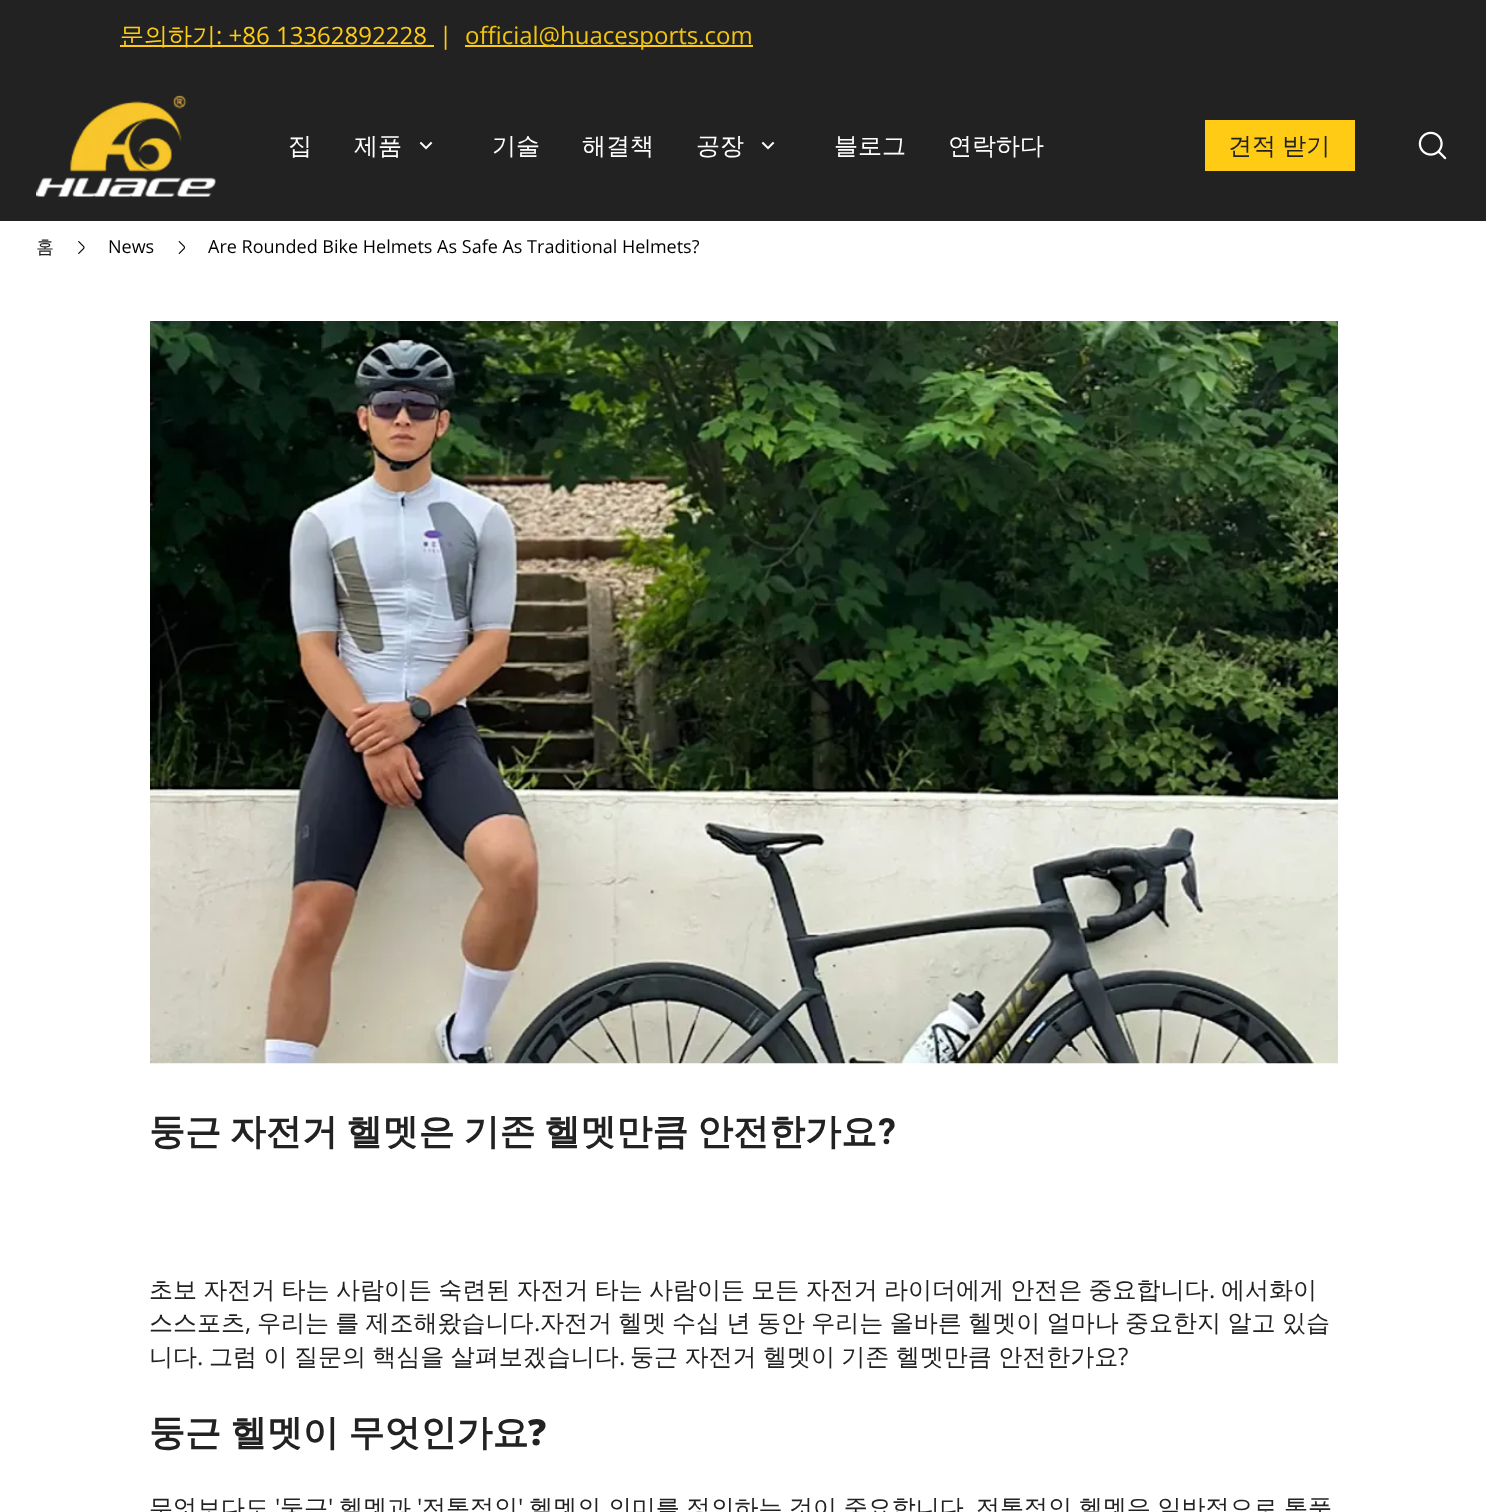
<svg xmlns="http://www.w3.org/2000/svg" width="1486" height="1512">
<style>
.a{font:500 24px WenQuanYi Zen Hei;fill:#ffcb14}
.b{font:24px Open Sans;fill:#ffcb14}
.c{font:24px Open Sans;fill:#f1c40f}
.d{font:500 24px WenQuanYi Zen Hei;fill:#fff}
.e{font:500 24px WenQuanYi Zen Hei;fill:#222}
.f{font:500 18px WenQuanYi Zen Hei;fill:#222}
.g{font:18px Open Sans;fill:#000}
.h{font:bold 36px WenQuanYi Zen Hei;fill:#222}
.i{font:bold 36px Roboto;fill:#222}
.j{font:24px Open Sans;fill:#222}
.k{font:800 36px Open Sans;fill:#222}
</style>
<rect width="100%" height="100%" fill="#fff"/>
<path fill="#222" d="M0 0h1486v221H0z"/>
<path fill="#ffcb14" d="M120 45h314v2H120z"/>
<path fill="#ffcb14" d="M465 45h288v2H465z"/>
<image href="1.png" x="36" y="95" width="180" height="102"/>
<image href="2.png" x="419" y="141" width="14" height="9"/>
<image href="2.png" x="761" y="141" width="14" height="9"/>
<path fill="#ffcb14" d="M1205 120h150v51H1205z"/>
<image href="3.png" x="1418" y="131" width="29" height="29"/>
<image href="4.png" x="78" y="241" width="7" height="13"/>
<image href="5.png" x="178" y="241" width="8" height="13"/>
<image href="6.png" x="150" y="321" width="1188" height="743"/>
<text class="a" x="120" y="44">문의하기</text>
<text class="b" x="216" y="44">: +86 13362892228</text>
<text class="b" x="439" y="44">|</text>
<text class="c" x="465" y="44">official@huacesports.com</text>
<text class="d" x="288" y="154">집</text>
<text class="d" x="354" y="154">제품</text>
<text class="d" x="492" y="154">기술</text>
<text class="d" x="582" y="154">해결책</text>
<text class="d" x="696" y="154">공장</text>
<text class="d" x="834" y="154">블로그</text>
<text class="d" x="948" y="154">연락하다</text>
<text class="e" x="1228" y="154" word-spacing="-1">견적 받기</text>
<text class="f" x="36" y="253">홈</text>
<text class="g" x="108" y="253">News</text>
<text class="g" x="208" y="253">Are Rounded Bike Helmets As Safe As Traditional Helmets?</text>
<text class="h" x="149" y="1144" word-spacing="-2">둥근 자전거 헬멧은 기존 헬멧만큼 안전한가요</text>
<text class="i" x="878" y="1144">?</text>
<text class="e" x="149" y="1298" word-spacing="-0.9">초보 자전거 타는 사람이든 숙련된 자전거 타는 사람이든 모든 자전거 라이더에게 안전은 중요합니다</text>
<text class="j" x="1209" y="1298">.</text>
<text class="e" x="1221" y="1298">에서화이</text>
<text class="e" x="149" y="1331">스스포츠</text>
<text class="j" x="245" y="1331">,</text>
<text class="e" x="257" y="1331" word-spacing="-1">우리는 를 제조해왔습니다</text>
<text class="j" x="534" y="1331">.</text>
<text class="e" x="540" y="1331" word-spacing="-1">자전거 헬멧</text>
<text class="e" x="672" y="1331" word-spacing="-0.75">수십 년 동안 우리는 올바른 헬멧이 얼마나 중요한지 알고 있습</text>
<text class="e" x="149" y="1365">니다</text>
<text class="j" x="197" y="1365">.</text>
<text class="e" x="209" y="1365" word-spacing="-0.75">그럼 이 질문의 핵심을 살펴보겠습니다</text>
<text class="j" x="619" y="1365">.</text>
<text class="e" x="630" y="1365" word-spacing="-0.75">둥근 자전거 헬멧이 기존 헬멧만큼 안전한가요</text>
<text class="j" x="1118" y="1365">?</text>
<text class="h" x="149" y="1445" word-spacing="-1">둥근 헬멧이 무엇인가요</text>
<text class="k" x="528" y="1445">?</text>
<text class="e" x="149" y="1516">무엇보다도</text>
<text class="j" x="275" y="1516">'</text>
<text class="e" x="280" y="1516">둥근</text>
<text class="j" x="328" y="1516">'</text>
<text class="e" x="339" y="1516">헬멧과</text>
<text class="j" x="417" y="1516">'</text>
<text class="e" x="422" y="1516">전통적인</text>
<text class="j" x="518" y="1516">'</text>
<text class="e" x="529" y="1516" word-spacing="-0.5">헬멧의 의미를 정의하는 것이 중요합니다</text>
<text class="e" x="976" y="1516" word-spacing="-0.5">전통적인 헬멧은 일반적으로 통풍</text>
</svg>
